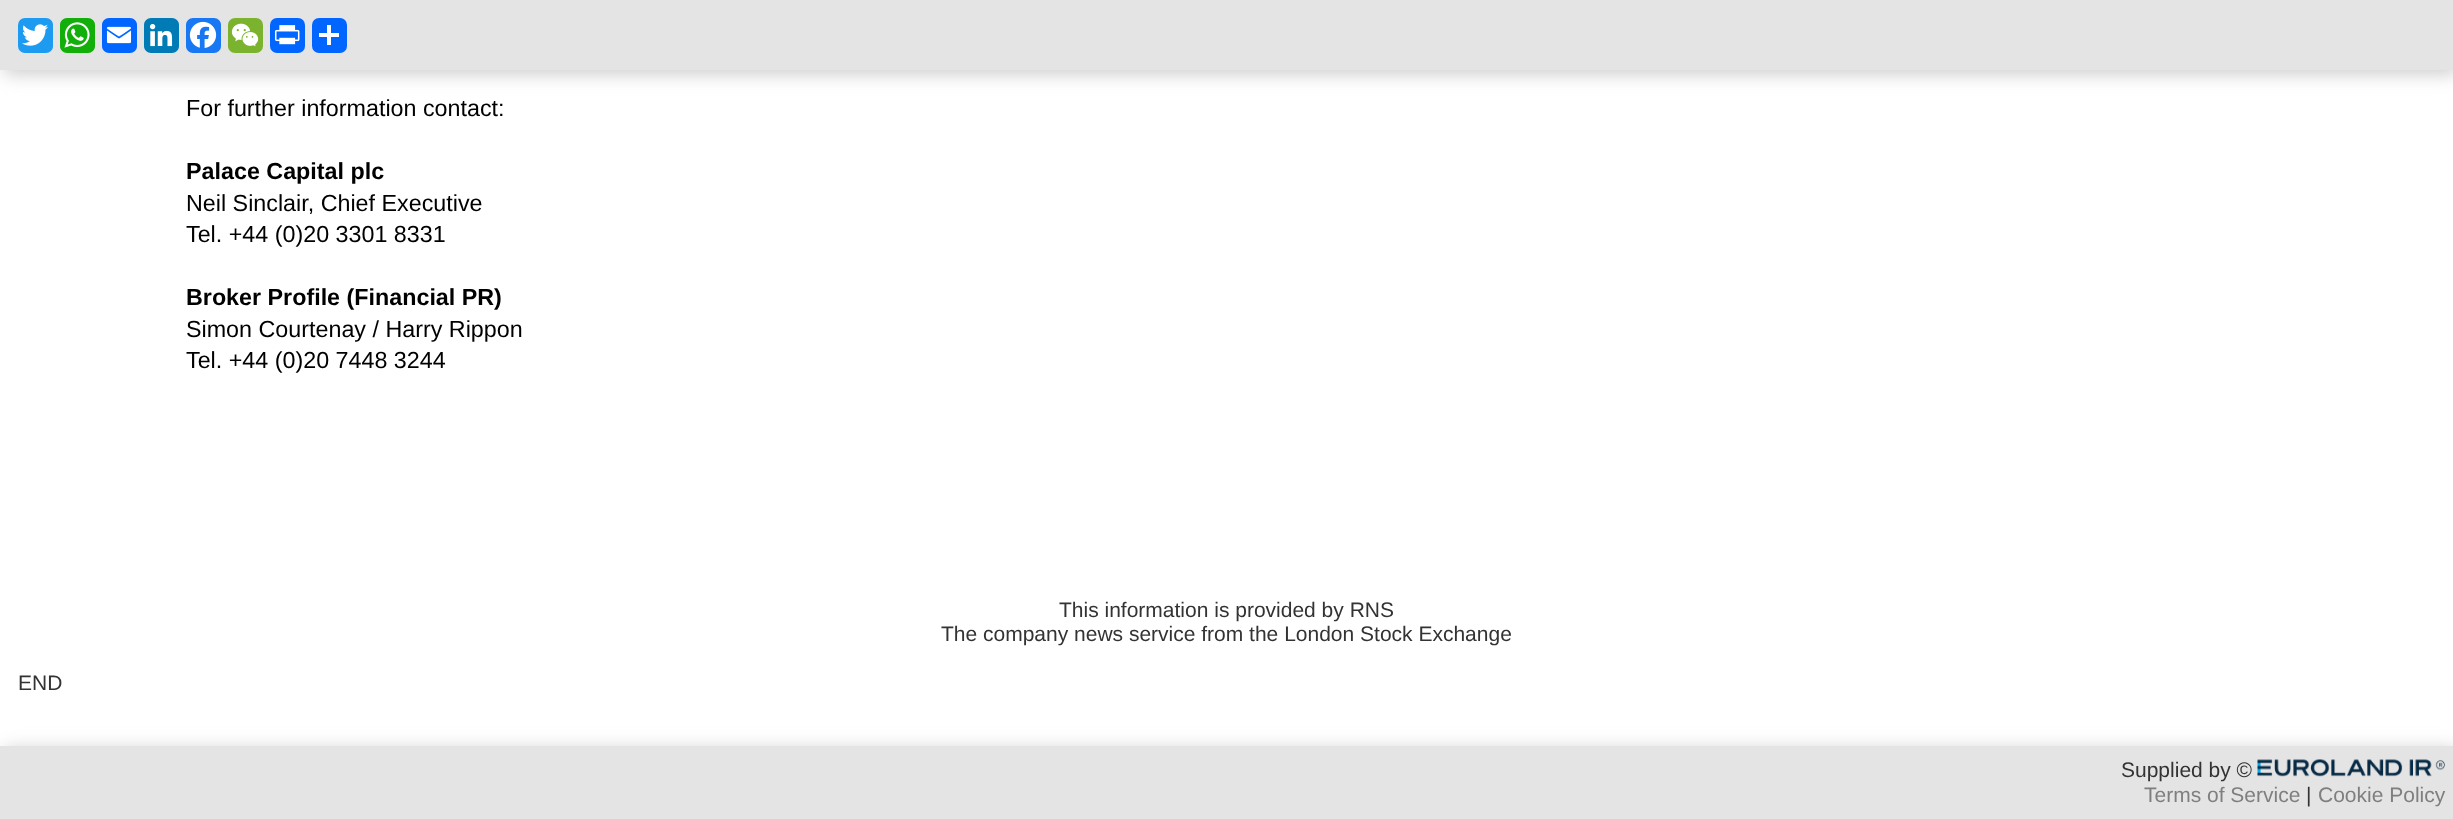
<svg xmlns="http://www.w3.org/2000/svg" width="2453" height="819">
<style>
.a{font:23.3px Liberation Sans;fill:#000}
.b{font:bold 23.3px Liberation Sans;fill:#000}
.c{font:21px Liberation Sans;fill:#333}
.d{font:21px Liberation Sans;fill:#7f7f7f}
</style>
<rect width="100%" height="100%" fill="#fff"/>
<path fill="#ccc" filter="blur(9px)" d="M4 4h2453v70H4z"/>
<path fill="#e4e4e4" d="M0 0h2453v70H0z"/>
<rect fill="#1d9bf0" x="18" y="18" width="35" height="35" rx="7"/>
<image href="1.png" x="22" y="24" width="26" height="22"/>
<rect fill="#12af0a" x="60" y="18" width="35" height="35" rx="7"/>
<image href="2.png" x="64" y="22" width="26" height="26"/>
<rect fill="#0166ff" x="102" y="18" width="35" height="35" rx="7"/>
<image href="3.png" x="106" y="26" width="26" height="18"/>
<rect fill="#007bb5" x="144" y="18" width="35" height="35" rx="7"/>
<image href="4.png" x="150" y="24" width="23" height="23"/>
<rect fill="#1877f2" x="186" y="18" width="35" height="35" rx="7"/>
<image href="5.png" x="189" y="21" width="28" height="27"/>
<rect fill="#7bb32e" x="228" y="18" width="35" height="35" rx="7"/>
<image href="6.png" x="231" y="23" width="28" height="24"/>
<rect fill="#0166ff" x="270" y="18" width="35" height="35" rx="7"/>
<image href="7.png" x="274" y="25" width="26" height="20"/>
<rect fill="#0166ff" x="312" y="18" width="35" height="35" rx="7"/>
<path fill="#fff" d="M327 25h4v20H327z"/>
<path fill="#fff" d="M319 33h20v4H319z"/>
<path fill="#ccc" filter="blur(9px)" d="M4 749h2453v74H4z"/>
<path fill="#e4e4e4" d="M0 746h2453v73H0z"/>
<image href="8.png" x="2257" y="759" width="188" height="18"/>
<text class="a" x="186" y="116">For further information contact:</text>
<text class="b" x="186" y="179">Palace Capital plc</text>
<text class="a" x="186" y="211">Neil Sinclair, Chief Executive</text>
<text class="a" x="186" y="242">Tel. +44 (0)20 3301 8331</text>
<text class="b" x="186" y="305">Broker Profile (Financial PR)</text>
<text class="a" x="186" y="337">Simon Courtenay / Harry Rippon</text>
<text class="a" x="186" y="368">Tel. +44 (0)20 7448 3244</text>
<text class="c" x="1059" y="617">This information is provided by RNS</text>
<text class="c" x="941" y="641">The company news service from the London Stock Exchange</text>
<text class="c" x="18" y="690">END</text>
<text class="c" x="2121" y="777">Supplied by ©</text>
<text class="d" x="2144" y="802">Terms of Service</text>
<text class="c" x="2306" y="802">|</text>
<text class="d" x="2318" y="802">Cookie Policy</text>
</svg>
